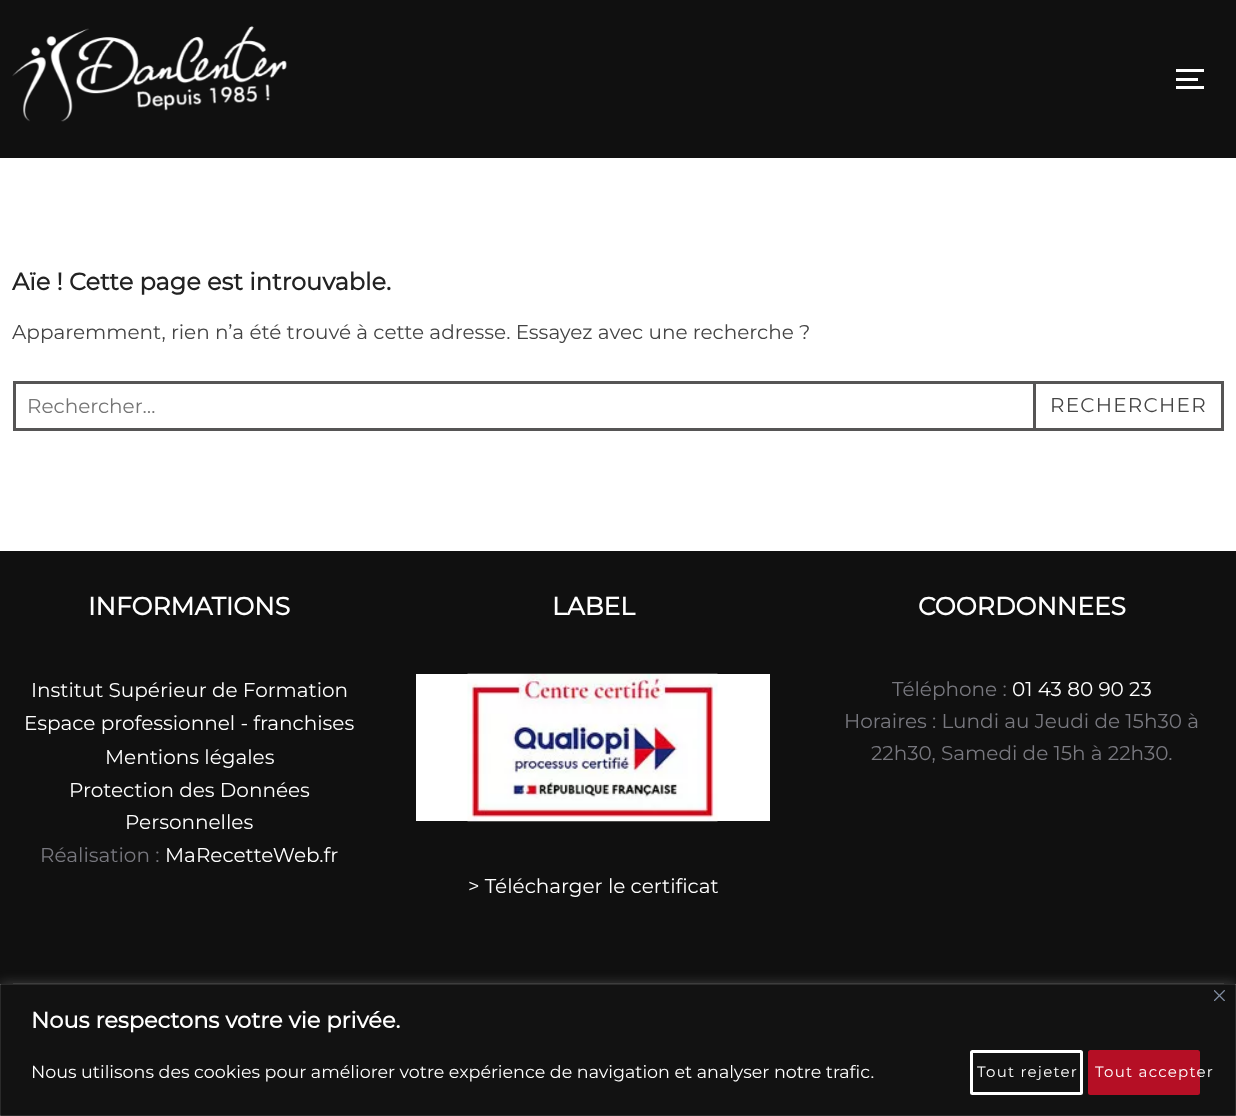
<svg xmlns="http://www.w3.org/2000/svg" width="1236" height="1116">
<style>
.a{font:bold 24px Montserrat;fill:#222}
.b{font:100 20px Montserrat;fill:#444}
.c{font:100 20px Montserrat;fill:#757575}
.d{font:100 20px Montserrat;letter-spacing:1.25px;fill:#444}
.e{font:bold 25px Montserrat;fill:#fff}
.f{font:100 20px Montserrat;fill:#fff}
.g{font:100 20px Montserrat;fill:#78787f}
.h{font:bold 22.5px Montserrat;fill:#fff}
.i{font:100 17.5px Montserrat;fill:#fff}
.j{font:100 15px Montserrat;letter-spacing:1.25px;fill:#fff}
</style>
<rect width="100%" height="100%" fill="#fff"/>
<path fill="#101010" d="M0 0h1236v158H0z"/>
<image href="1.png" x="12" y="26" width="275" height="96"/>
<path fill="#fff" d="M1176 69h28v3H1176z"/>
<path fill="#fff" d="M1176 78h22v3H1176z"/>
<path fill="#fff" d="M1176 86h28v3H1176z"/>
<path fill="none" stroke="#565555" stroke-width="3" d="M14.5 382.5h1208v47H14.5z"/>
<path fill="none" stroke="#565555" stroke-width="3" d="M1034.5 382.5h188v47H1034.5z"/>
<path fill="#101010" d="M0 551h1236v433H0z"/>
<path fill="#fff" d="M416 674h354v147H416z"/>
<image href="2.png" x="467" y="673" width="251" height="149"/>
<path fill="#282828" d="M13 983h1211v1H13z"/>
<path fill="#acabab4d" filter="blur(6px)" d="M0 983h1236v132H0z"/>
<path fill="#121212" stroke="#2a2a2a" d="M0.5 984.5h1235v131H0.5z"/>
<image href="3.png" x="1214" y="990" width="11" height="11"/>
<rect fill="none" stroke="#fff" stroke-width="3" x="971.5" y="1051.5" width="110" height="42" rx="1"/>
<rect fill="#b50f25" stroke="#b50f25" stroke-width="3" x="1089.5" y="1051.5" width="109" height="42" rx="1"/>
<text class="a" x="12" y="290">Aïe ! Cette page est introuvable.</text>
<text class="b" x="12" y="339">Apparemment, rien n’a été trouvé à cette adresse. Essayez avec une recherche ?</text>
<text class="c" x="27" y="413">Rechercher…</text>
<text class="d" x="1050" y="412">RECHERCHER</text>
<text class="e" x="88" y="615">INFORMATIONS</text>
<text class="f" x="31" y="697">Institut Supérieur de Formation</text>
<text class="f" x="24" y="730">Espace professionnel - franchises</text>
<text class="f" x="105" y="764">Mentions légales</text>
<text class="f" x="69" y="797">Protection des Données</text>
<text class="f" x="125" y="829">Personnelles</text>
<text class="g" x="40" y="862">Réalisation :</text>
<text class="f" x="165" y="862">MaRecetteWeb.fr</text>
<text class="e" x="552" y="615">LABEL</text>
<text class="f" x="468" y="893">&gt; Télécharger le certificat</text>
<text class="e" x="918" y="615">COORDONNEES</text>
<text class="g" x="892" y="696">Téléphone :</text>
<text class="f" x="1012" y="696">01 43 80 90 23</text>
<text class="g" x="844" y="728">Horaires : Lundi au Jeudi de 15h30 à</text>
<text class="g" x="871" y="760">22h30, Samedi de 15h à 22h30.</text>
<text class="h" x="31" y="1028">Nous respectons votre vie privée.</text>
<text class="i" x="31" y="1078">Nous utilisons des cookies pour améliorer votre expérience de navigation et analyser notre trafic.</text>
<text class="j" x="977" y="1077">Tout rejeter</text>
<text class="j" x="1095" y="1077">Tout accepter</text>
</svg>
